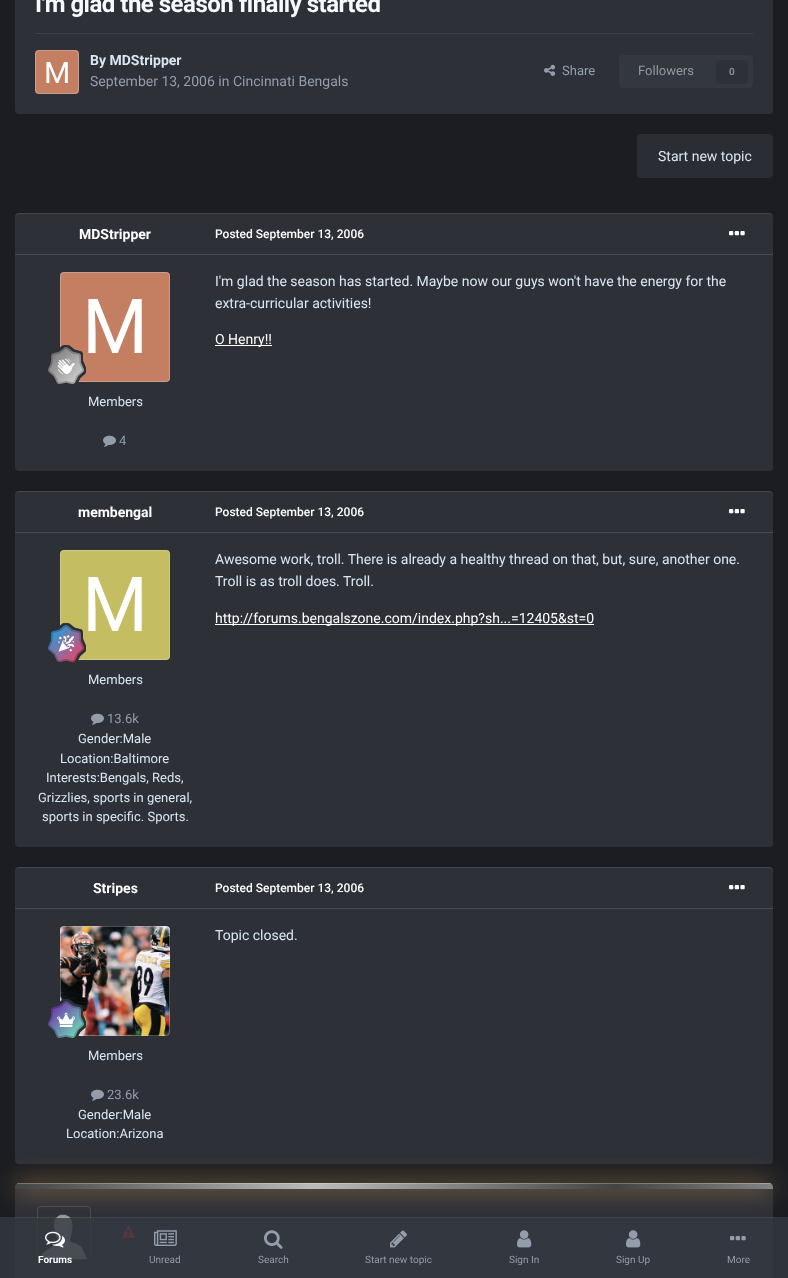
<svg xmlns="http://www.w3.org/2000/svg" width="788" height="1278">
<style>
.a{font:bold 24px Roboto;letter-spacing:-0.5px;fill:#f7fafe}
.b{font:bold 14px Roboto;fill:#dae6f3}
.c{font:14px Roboto;fill:#939dac}
.d{font:13px Roboto;fill:#939dac}
.e{font:13px Roboto;fill:#96989b}
.f{font:bold 10px Roboto;fill:#848b95}
.g{font:14px Roboto;fill:#dae6f3}
.h{font:bold 14px Roboto;fill:#fff}
.i{font:13px Roboto;fill:#dae6f3}
.j{font:500 12px Roboto;fill:#fff}
.k{font:14px Roboto;fill:#fff}
.l{font:bold 10px Roboto;fill:#f7fafe}
.m{font:10px Roboto;fill:#939dac}
</style>
<defs>
<clipPath id="clip1"><path d="M19 1183h750c2 0 4 2 4 4v2h-758v-2c0-2 2-4 4-4z"/></clipPath>
<linearGradient id="g1" gradientUnits="userSpaceOnUse" x1="15" y1="1187" x2="615" y2="1187"><stop offset="0" stop-color="#444"/><stop offset="0.5" stop-color="#bbb"/><stop offset="1" stop-color="#444"/></linearGradient>
<linearGradient id="g2" gradientUnits="userSpaceOnUse" x1="615" y1="1187" x2="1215" y2="1187"><stop offset="0" stop-color="#444"/><stop offset="0.5" stop-color="#bbb"/><stop offset="1" stop-color="#444"/></linearGradient>
</defs>
<rect width="100%" height="100%" fill="#1b1d22"/>
<rect fill="#2d3037" x="15" y="-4" width="758" height="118" rx="4"/>
<path fill="#3b3f46" d="M35 33h718v1H35z"/>
<image href="1.png" x="35" y="50" width="44" height="44"/>
<rect fill="none" stroke="#dae6f34d" x="35.5" y="50.5" width="43" height="43" rx="3.5"/>
<image href="2.png" x="544" y="64" width="12" height="12"/>
<rect fill="#33373f" x="619" y="55" width="134" height="33" rx="4"/>
<rect fill="#2d3037" x="716" y="60" width="32" height="24" rx="4"/>
<rect fill="#2a2d34" x="637" y="134" width="136" height="44" rx="4"/>
<rect fill="#2d3037" x="15" y="213" width="758" height="258" rx="4"/>
<path fill="#ffffff1a" d="M19 214h750c2 0 4 2 4 4v-1c0-2-2-4-4-4h-750c-2 0-4 2-4 4v1c0-2 2-4 4-4z"/>
<image href="3.png" x="60" y="272" width="110" height="110"/>
<rect fill="none" stroke="#dae6f34d" x="60.5" y="272.5" width="109" height="109" rx="3.5"/>
<image href="4.png" x="48" y="345" width="38" height="39"/>
<image href="5.png" x="103" y="435" width="13" height="12"/>
<image href="6.png" x="729" y="231" width="16" height="5"/>
<path fill="#fff" d="M215 345h57v1H215z"/>
<path fill="#474b53" d="M15 254h758v1H15z"/>
<rect fill="#2d3037" x="15" y="491" width="758" height="356" rx="4"/>
<path fill="#ffffff1a" d="M19 492h750c2 0 4 2 4 4v-1c0-2-2-4-4-4h-750c-2 0-4 2-4 4v1c0-2 2-4 4-4z"/>
<image href="7.png" x="60" y="550" width="110" height="110"/>
<rect fill="none" stroke="#dae6f34d" x="60.5" y="550.5" width="109" height="109" rx="3.5"/>
<image href="8.png" x="48" y="623" width="38" height="39"/>
<image href="5.png" x="91" y="713" width="13" height="12"/>
<image href="6.png" x="729" y="509" width="16" height="5"/>
<path fill="#fff" d="M215 624h379v1H215z"/>
<path fill="#474b53" d="M15 532h758v1H15z"/>
<rect fill="#2d3037" x="15" y="867" width="758" height="297" rx="4"/>
<path fill="#ffffff1a" d="M19 868h750c2 0 4 2 4 4v-1c0-2-2-4-4-4h-750c-2 0-4 2-4 4v1c0-2 2-4 4-4z"/>
<image href="9.png" x="60" y="926" width="110" height="110"/>
<rect fill="none" stroke="#dae6f34d" x="60.5" y="926.5" width="109" height="109" rx="3.5"/>
<image href="10.png" x="48" y="999" width="38" height="39"/>
<image href="5.png" x="91" y="1089" width="13" height="12"/>
<image href="6.png" x="729" y="885" width="16" height="5"/>
<path fill="#474b53" d="M15 908h758v1H15z"/>
<rect fill="#2d3037" x="15" y="1184" width="758" height="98" rx="4"/>
<image href="11.png" x="39" y="1214" width="49" height="46"/>
<rect fill="none" stroke="#474b53" x="37.5" y="1206.5" width="53" height="53" rx="3.5"/>
<image href="12.png" x="122" y="1225" width="13" height="13"/>
<rect fill="#d99d56" filter="blur(12.5px)" x="15" y="1183" width="758" height="6" rx="4"/>
<g clip-path="url(#clip1)">
<path fill="url(#g1)" d="M15 1183h600v6H15z"/>
<path fill="url(#g2)" d="M615 1183h158v6H615z"/>
</g>
<path fill="#ffffff40" d="M17 1183h754v1H17z"/>
<path fill="#ffffff1a" d="M0 1217h788v1H0z"/>
<path fill="#353941cc" d="M0 1218h788v60H0z"/>
<image href="13.png" x="45" y="1231" width="20" height="17"/>
<image href="14.png" x="154" y="1230" width="23" height="16"/>
<image href="15.png" x="264" y="1230" width="19" height="19"/>
<image href="16.png" x="390" y="1230" width="17" height="18"/>
<image href="17.png" x="517" y="1230" width="15" height="18"/>
<image href="17.png" x="626" y="1230" width="15" height="18"/>
<image href="18.png" x="730" y="1236" width="16" height="5"/>
<text class="a" x="35" y="12">I'm glad the season finally started</text>
<text class="b" x="90" y="65">By MDStripper</text>
<text class="c" x="90" y="86">September 13, 2006 in Cincinnati Bengals</text>
<text class="d" x="562" y="75">Share</text>
<text class="e" x="638" y="75">Followers</text>
<text class="f" x="729" y="75">0</text>
<text class="g" x="658" y="161">Start new topic</text>
<text class="h" x="79" y="239">MDStripper</text>
<text class="i" x="88" y="406">Members</text>
<text class="d" x="119" y="445">4</text>
<text class="j" x="215" y="238">Posted September 13, 2006</text>
<text class="g" x="215" y="286">I'm glad the season has started. Maybe now our guys won't have the energy for the</text>
<text class="g" x="215" y="308">extra-curricular activities!</text>
<text class="k" x="215" y="344">O Henry!!</text>
<text class="h" x="78" y="517">membengal</text>
<text class="i" x="88" y="684">Members</text>
<text class="d" x="107" y="723">13.6k</text>
<text class="i" x="78" y="743">Gender:Male</text>
<text class="i" x="60" y="763">Location:Baltimore</text>
<text class="i" x="46" y="782">Interests:Bengals, Reds,</text>
<text class="i" x="38" y="802">Grizzlies, sports in general,</text>
<text class="i" x="42" y="821">sports in specific. Sports.</text>
<text class="j" x="215" y="516">Posted September 13, 2006</text>
<text class="g" x="215" y="564">Awesome work, troll. There is already a healthy thread on that, but, sure, another one.</text>
<text class="g" x="215" y="586">Troll is as troll does. Troll.</text>
<text class="k" x="215" y="623">http://forums.bengalszone.com/index.php?sh...=12405&amp;st=0</text>
<text class="h" x="93" y="893">Stripes</text>
<text class="i" x="88" y="1060">Members</text>
<text class="d" x="107" y="1099">23.6k</text>
<text class="i" x="78" y="1119">Gender:Male</text>
<text class="i" x="66" y="1138">Location:Arizona</text>
<text class="j" x="215" y="892">Posted September 13, 2006</text>
<text class="g" x="215" y="940">Topic closed.</text>
<text class="l" x="38" y="1263">Forums</text>
<text class="m" x="149" y="1263">Unread</text>
<text class="m" x="258" y="1263">Search</text>
<text class="m" x="365" y="1263">Start new topic</text>
<text class="m" x="509" y="1263">Sign In</text>
<text class="m" x="616" y="1263">Sign Up</text>
<text class="m" x="727" y="1263">More</text>
</svg>
